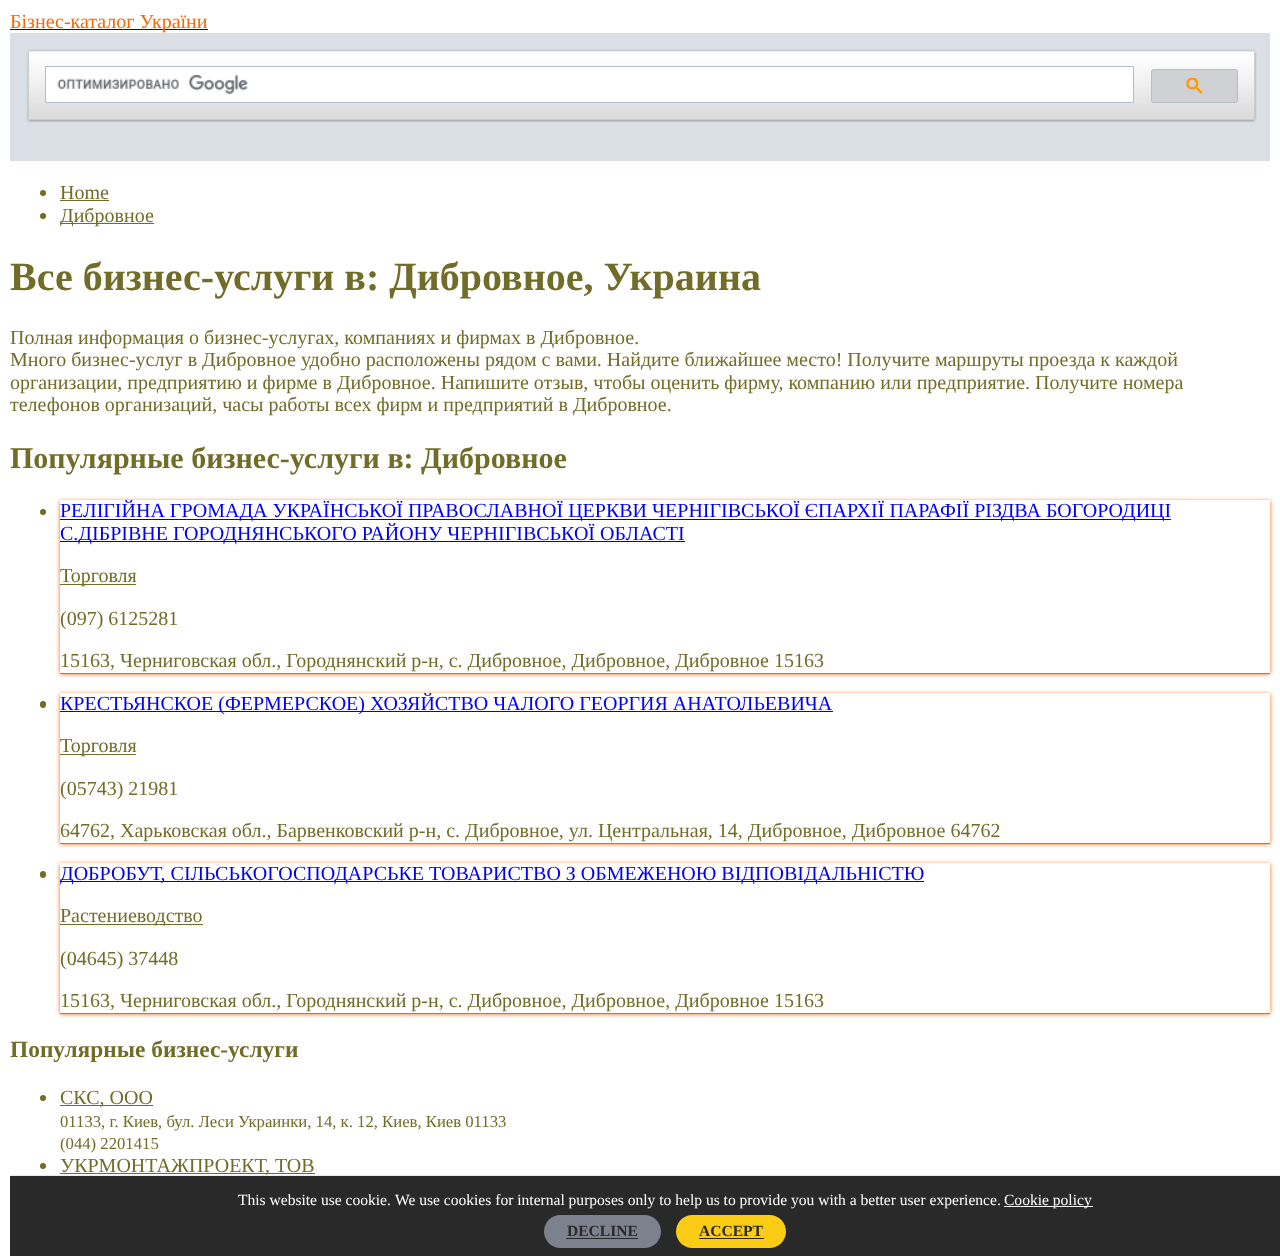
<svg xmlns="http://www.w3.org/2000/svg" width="1280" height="1256">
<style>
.a{font:20px Liberation Serif;fill:#fa6600}
.b{font:20px Liberation Serif;fill:#716c28}
.c{font:bold 40px Liberation Serif;fill:#716c28}
.d{font:bold 30px Liberation Serif;fill:#716c28}
.e{font:20px Liberation Serif;fill:#00e}
.f{font:bold 23.4px Liberation Serif;fill:#716c28}
.g{font:16.7px Liberation Serif;fill:#716c28}
.h{font:15.55px Liberation Serif;fill:#fff}
.i{font:bold 15.55px Liberation Serif;fill:#292929}
</style>
<defs>
<clipPath id="clip1"><path d="M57 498h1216v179h-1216zm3 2h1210v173h-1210z" clip-rule="evenodd"/></clipPath>
<clipPath id="clip2"><path d="M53 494h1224v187h-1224zm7 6h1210v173h-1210z" clip-rule="evenodd"/></clipPath>
<clipPath id="clip3"><path d="M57 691h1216v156h-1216zm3 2h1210v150h-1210z" clip-rule="evenodd"/></clipPath>
<clipPath id="clip4"><path d="M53 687h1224v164h-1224zm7 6h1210v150h-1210z" clip-rule="evenodd"/></clipPath>
<clipPath id="clip5"><path d="M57 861h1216v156h-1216zm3 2h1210v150h-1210z" clip-rule="evenodd"/></clipPath>
<clipPath id="clip6"><path d="M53 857h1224v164h-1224zm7 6h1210v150h-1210z" clip-rule="evenodd"/></clipPath>
</defs>
<rect width="100%" height="100%" fill="#fff"/>
<path fill="#00e" d="M10 29h198v1H10z"/>
<path fill="#dae0e5" d="M10 33h1260v128H10z"/>
<rect fill="#999" filter="blur(1px)" x="28" y="51" width="1227" height="70" rx="2.5"/>
<image href="1.png" x="27" y="51" width="1228" height="69"/>
<rect fill="none" stroke="#ccc" x="28.5" y="50.5" width="1226" height="69" rx="2"/>
<path fill="#fff" stroke="#b6bec5" d="M45.5 66.5h1088v36H45.5z"/>
<image href="2.png" x="57" y="75" width="191" height="19"/>
<rect fill="#d0d1d4" stroke="#b6bec5" x="1151.5" y="69.5" width="86" height="33" rx="2"/>
<image href="3.png" x="1186" y="78" width="17" height="16"/>
<circle fill="#716c28" cx="43" cy="193" r="3"/>
<path fill="#716c28" d="M60 200h49v1H60z"/>
<circle fill="#716c28" cx="43" cy="216" r="3"/>
<path fill="#716c28" d="M60 223h94v1H60z"/>
<circle fill="#716c28" cx="43" cy="512" r="3"/>
<g clip-path="url(#clip1)">
<path fill="#fa6600" filter="blur(0.5px)" d="M60 501h1210v173H60z"/>
</g>
<g clip-path="url(#clip2)">
<path fill="#fa6600" filter="blur(2px)" d="M60 501h1210v173H60z"/>
</g>
<path fill="#00e" d="M60 519h1111v1H60z"/>
<path fill="#00e" d="M60 541h625v1H60z"/>
<path fill="#716c28" d="M60 584h76v1H60z"/>
<rect fill="#716c28" x="40" y="701" width="6" height="7" rx="3"/>
<g clip-path="url(#clip3)">
<path fill="#fa6600" filter="blur(0.5px)" d="M60 694h1210v150H60z"/>
</g>
<g clip-path="url(#clip4)">
<path fill="#fa6600" filter="blur(2px)" d="M60 694h1210v150H60z"/>
</g>
<path fill="#00e" d="M60 711h773v1H60z"/>
<path fill="#716c28" d="M60 754h76v1H60z"/>
<rect fill="#716c28" x="40" y="871" width="6" height="7" rx="3"/>
<g clip-path="url(#clip5)">
<path fill="#fa6600" filter="blur(0.5px)" d="M60 864h1210v150H60z"/>
</g>
<g clip-path="url(#clip6)">
<path fill="#fa6600" filter="blur(2px)" d="M60 864h1210v150H60z"/>
</g>
<path fill="#00e" d="M60 881h864v1H60z"/>
<path fill="#716c28" d="M60 924h143v1H60z"/>
<circle fill="#716c28" cx="43" cy="1098" r="3"/>
<path fill="#716c28" d="M60 1105h93v1H60z"/>
<circle fill="#716c28" cx="43" cy="1166" r="3"/>
<path fill="#716c28" d="M60 1173h255v1H60z"/>
<path fill="#292929" d="M10 1176h1270v80H10z"/>
<path fill="#fff" d="M1004 1206h89v1H1004z"/>
<rect fill="#7d818e" x="544" y="1215" width="117" height="33" rx="16.5"/>
<path fill="#292929" d="M566 1238h72v1H566z"/>
<rect fill="#facc16" x="676" y="1215" width="110" height="33" rx="16.5"/>
<path fill="#292929" d="M699 1238h65v1H699z"/>
<text class="a" x="10" y="28">Бізнес-каталог України</text>
<text class="b" x="60" y="199">Home</text>
<text class="b" x="60" y="222">Дибровное</text>
<text class="c" x="10" y="290">Все бизнес-услуги в: Дибровное, Украина</text>
<text class="b" x="10" y="344">Полная информация о бизнес-услугах, компаниях и фирмах в Дибровное.</text>
<text class="b" x="10" y="366">Много бизнес-услуг в Дибровное удобно расположены рядом с вами. Найдите ближайшее место! Получите маршруты проезда к каждой</text>
<text class="b" x="10" y="389">организации, предприятию и фирме в Дибровное. Напишите отзыв, чтобы оценить фирму, компанию или предприятие. Получите номера</text>
<text class="b" x="10" y="411">телефонов организаций, часы работы всех фирм и предприятий в Дибровное.</text>
<text class="d" x="10" y="468">Популярные бизнес-услуги в: Дибровное</text>
<text class="e" x="60" y="517">РЕЛІГІЙНА ГРОМАДА УКРАЇНСЬКОЇ ПРАВОСЛАВНОЇ ЦЕРКВИ ЧЕРНІГІВСЬКОЇ ЄПАРХІЇ ПАРАФІЇ РІЗДВА БОГОРОДИЦІ</text>
<text class="e" x="60" y="540">С.ДІБРІВНЕ ГОРОДНЯНСЬКОГО РАЙОНУ ЧЕРНІГІВСЬКОЇ ОБЛАСТІ</text>
<text class="b" x="60" y="582">Торговля</text>
<text class="b" x="60" y="625">(097) 6125281</text>
<text class="b" x="60" y="667">15163, Черниговская обл., Городнянский р-н, с. Дибровное, Дибровное, Дибровное 15163</text>
<text class="e" x="60" y="710">КРЕСТЬЯНСКОЕ (ФЕРМЕРСКОЕ) ХОЗЯЙСТВО ЧАЛОГО ГЕОРГИЯ АНАТОЛЬЕВИЧА</text>
<text class="b" x="60" y="752">Торговля</text>
<text class="b" x="60" y="795">(05743) 21981</text>
<text class="b" x="60" y="837">64762, Харьковская обл., Барвенковский р-н, с. Дибровное, ул. Центральная, 14, Дибровное, Дибровное 64762</text>
<text class="e" x="60" y="880">ДОБРОБУТ, СІЛЬСЬКОГОСПОДАРСЬКЕ ТОВАРИСТВО З ОБМЕЖЕНОЮ ВІДПОВІДАЛЬНІСТЮ</text>
<text class="b" x="60" y="922">Растениеводство</text>
<text class="b" x="60" y="965">(04645) 37448</text>
<text class="b" x="60" y="1007">15163, Черниговская обл., Городнянский р-н, с. Дибровное, Дибровное, Дибровное 15163</text>
<text class="f" x="10" y="1057">Популярные бизнес-услуги</text>
<text class="b" x="60" y="1104">СКС, ООО</text>
<text class="g" x="60" y="1127">01133, г. Киев, бул. Леси Украинки, 14, к. 12, Киев, Киев 01133</text>
<text class="g" x="60" y="1149">(044) 2201415</text>
<text class="b" x="60" y="1172">УКРМОНТАЖПРОЕКТ, ТОВ</text>
<path fill="#e8eaeb" d="M10 1175h1270v1H10z"/>
<text class="h" x="238" y="1205">This website use cookie.</text>
<text class="h" x="395" y="1205">We use cookies for internal purposes only to help us to provide you with a better user experience.</text>
<text class="h" x="1004" y="1205">Cookie policy</text>
<text class="i" x="567" y="1236">DECLINE</text>
<text class="i" x="699" y="1236">ACCEPT</text>
</svg>
